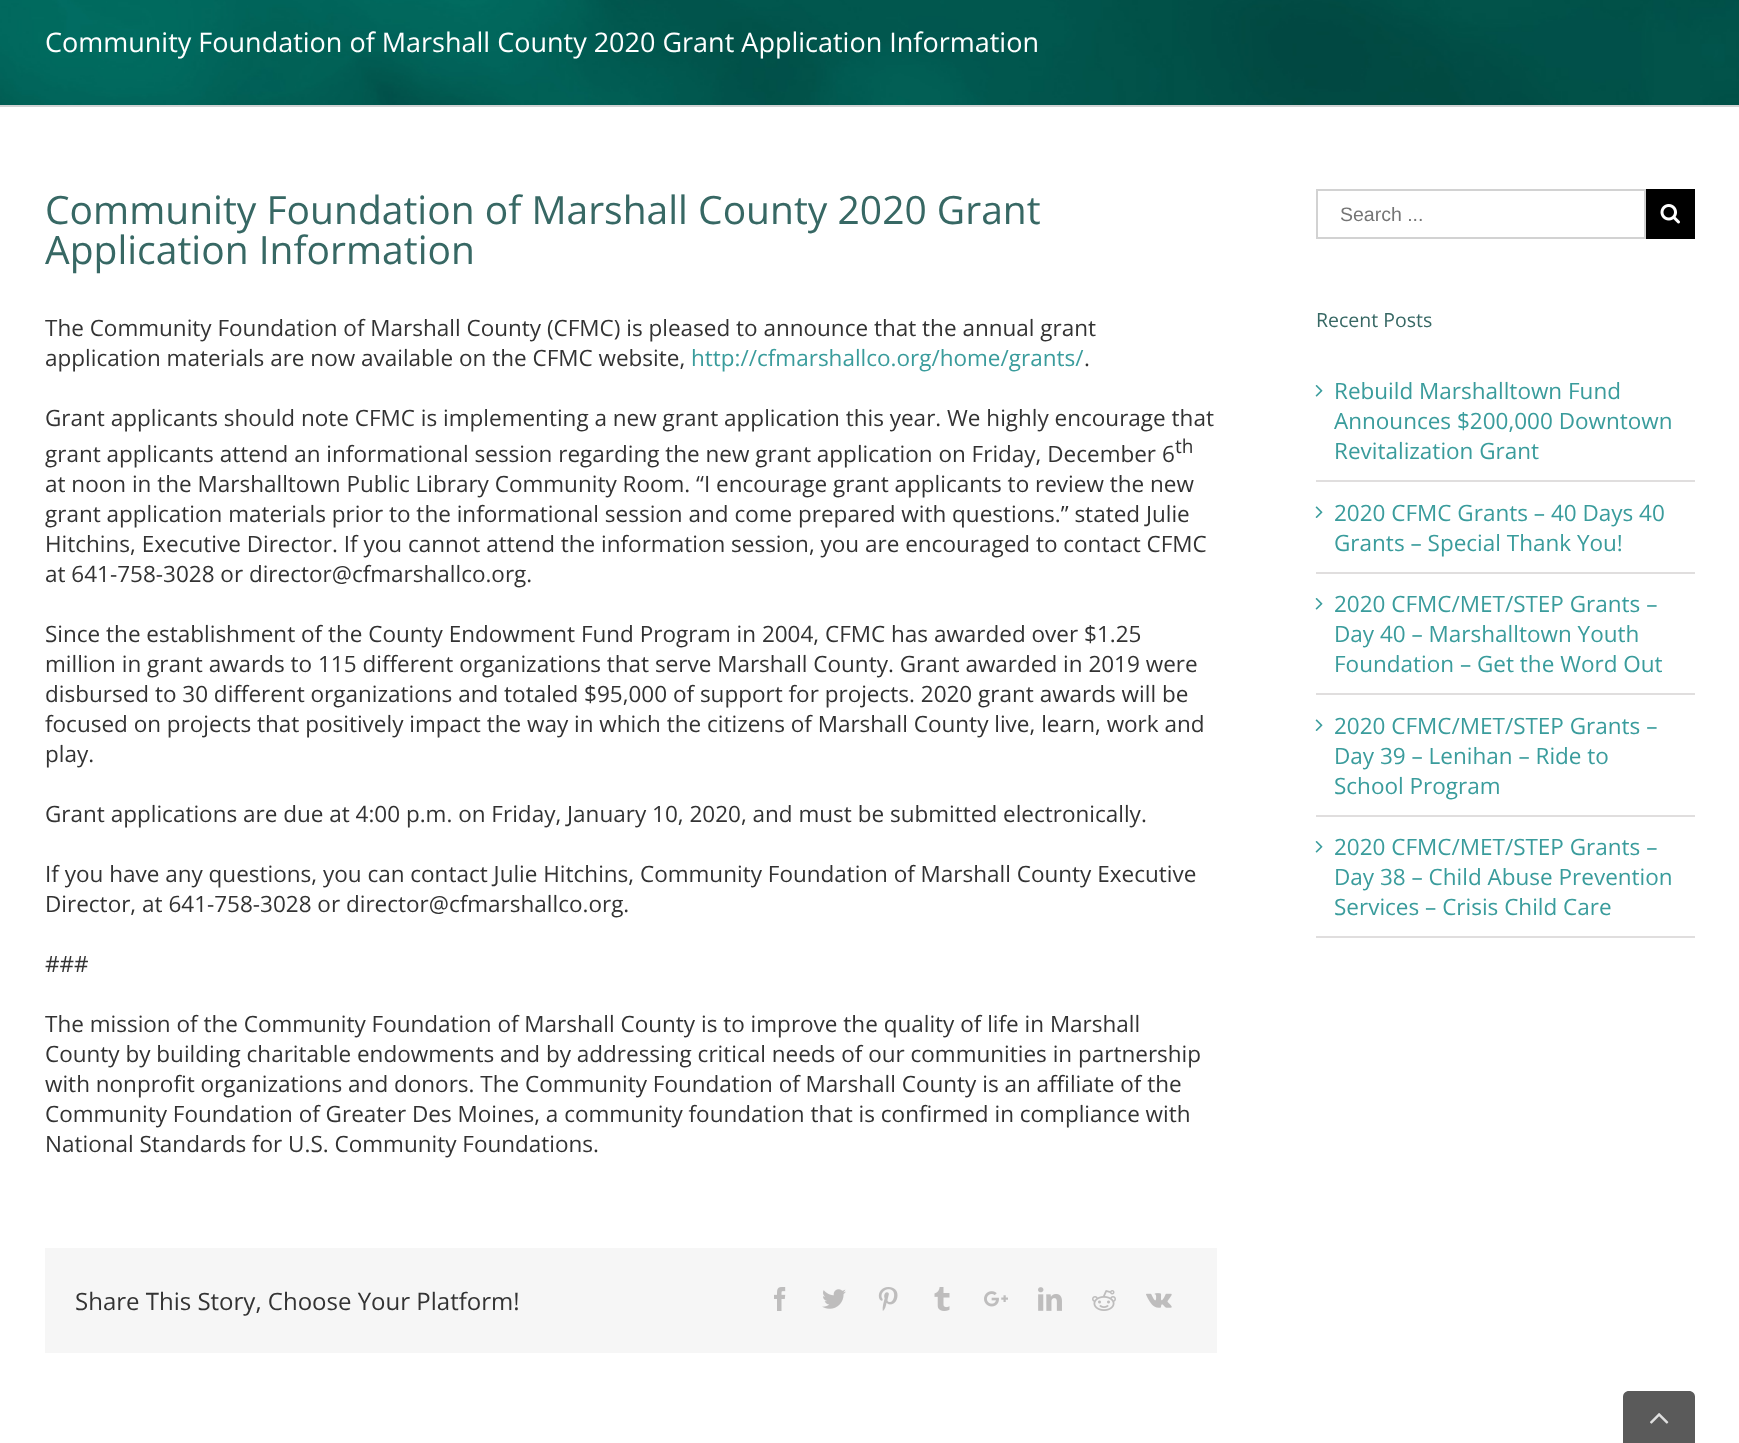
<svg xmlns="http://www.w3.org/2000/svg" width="1739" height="1443">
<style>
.a{font:27px Open Sans;fill:#fff}
.b{font:39px Open Sans;fill:#376864}
.c{font:22.5px Open Sans;fill:#333}
.d{font:22.5px Open Sans;fill:#3a9c9c}
.e{font:19px Open Sans;fill:#333}
.f{font:24px Open Sans;fill:#333}
.g{font:19.5px Liberation Sans;fill:#757575}
.h{font:19.5px Open Sans;fill:#376864}
</style>
<rect width="100%" height="100%" fill="#fff"/>
<image href="1.png" x="0" y="0" width="1739" height="105"/>
<path fill="#d2d3d4" d="M0 105h1739v2H0z"/>
<path fill="#f6f6f6" d="M45 1248h1172v105H45z"/>
<image href="2.png" x="774" y="1287" width="12" height="24"/>
<image href="3.png" x="822" y="1289" width="24" height="20"/>
<image href="4.png" x="878" y="1287" width="20" height="24"/>
<image href="5.png" x="934" y="1287" width="16" height="24"/>
<image href="6.png" x="984" y="1291" width="24" height="16"/>
<image href="7.png" x="1038" y="1287" width="24" height="24"/>
<image href="8.png" x="1092" y="1290" width="24" height="21"/>
<image href="9.png" x="1146" y="1293" width="26" height="15"/>
<path fill="none" stroke="#d2d2d2" stroke-width="2" d="M1317 190h328v48H1317z"/>
<path fill="#000" d="M1646 189h49v50H1646z"/>
<image href="10.png" x="1660" y="204" width="20" height="20"/>
<path fill="#e0dede" d="M1316 480h379v2H1316z"/>
<image href="11.png" x="1315" y="385" width="8" height="12"/>
<path fill="#e0dede" d="M1316 572h379v2H1316z"/>
<image href="12.png" x="1315" y="506" width="8" height="12"/>
<path fill="#e0dede" d="M1316 693h379v2H1316z"/>
<image href="11.png" x="1315" y="598" width="8" height="12"/>
<path fill="#e0dede" d="M1316 815h379v2H1316z"/>
<image href="12.png" x="1315" y="719" width="8" height="12"/>
<path fill="#e0dede" d="M1316 936h379v2H1316z"/>
<image href="11.png" x="1315" y="841" width="8" height="12"/>
<path fill="#5a5a5a" d="M1629 1391h60c3.5 0 6 2.5 6 6v46h-72v-46c0-3.5 2.5-6 6-6z"/>
<image href="13.png" x="1650" y="1413" width="19" height="11"/>
<text class="a" x="45" y="52">Community Foundation of Marshall County 2020 Grant Application Information</text>
<text class="b" x="45" y="224">Community Foundation of Marshall County 2020 Grant</text>
<text class="b" x="45" y="264">Application Information</text>
<text class="c" x="45" y="336">The Community Foundation of Marshall County (CFMC) is pleased to announce that the annual grant</text>
<text class="c" x="45" y="366">application materials are now available on the CFMC website,</text>
<text class="d" x="691" y="366">http://cfmarshallco.org/home/grants/</text>
<text class="c" x="1084" y="366">.</text>
<text class="c" x="45" y="426">Grant applicants should note CFMC is implementing a new grant application this year. We highly encourage that</text>
<text class="c" x="45" y="462">grant applicants attend an informational session regarding the new grant application on Friday, December 6</text>
<text class="e" x="1175" y="453">th</text>
<text class="c" x="45" y="492">at noon in the Marshalltown Public Library Community Room. “I encourage grant applicants to review the new</text>
<text class="c" x="45" y="522">grant application materials prior to the informational session and come prepared with questions.” stated Julie</text>
<text class="c" x="45" y="552">Hitchins, Executive Director. If you cannot attend the information session, you are encouraged to contact CFMC</text>
<text class="c" x="45" y="582">at 641-758-3028 or director@cfmarshallco.org.</text>
<text class="c" x="45" y="642">Since the establishment of the County Endowment Fund Program in 2004, CFMC has awarded over $1.25</text>
<text class="c" x="45" y="672">million in grant awards to 115 different organizations that serve Marshall County. Grant awarded in 2019 were</text>
<text class="c" x="45" y="702">disbursed to 30 different organizations and totaled $95,000 of support for projects. 2020 grant awards will be</text>
<text class="c" x="45" y="732">focused on projects that positively impact the way in which the citizens of Marshall County live, learn, work and</text>
<text class="c" x="45" y="762">play.</text>
<text class="c" x="45" y="822">Grant applications are due at 4:00 p.m. on Friday, January 10, 2020, and must be submitted electronically.</text>
<text class="c" x="45" y="882">If you have any questions, you can contact Julie Hitchins, Community Foundation of Marshall County Executive</text>
<text class="c" x="45" y="912">Director, at 641-758-3028 or director@cfmarshallco.org.</text>
<text class="c" x="45" y="972">###</text>
<text class="c" x="45" y="1032">The mission of the Community Foundation of Marshall County is to improve the quality of life in Marshall</text>
<text class="c" x="45" y="1062">County by building charitable endowments and by addressing critical needs of our communities in partnership</text>
<text class="c" x="45" y="1092">with nonprofit organizations and donors. The Community Foundation of Marshall County is an affiliate of the</text>
<text class="c" x="45" y="1122">Community Foundation of Greater Des Moines, a community foundation that is confirmed in compliance with</text>
<text class="c" x="45" y="1152">National Standards for U.S. Community Foundations.</text>
<text class="f" x="75" y="1310">Share This Story, Choose Your Platform!</text>
<text class="g" x="1340" y="221">Search ...</text>
<text class="h" x="1316" y="327">Recent Posts</text>
<text class="d" x="1334" y="399">Rebuild Marshalltown Fund</text>
<text class="d" x="1334" y="429">Announces $200,000 Downtown</text>
<text class="d" x="1334" y="459">Revitalization Grant</text>
<text class="d" x="1334" y="521">2020 CFMC Grants – 40 Days 40</text>
<text class="d" x="1334" y="551">Grants – Special Thank You!</text>
<text class="d" x="1334" y="612">2020 CFMC/MET/STEP Grants –</text>
<text class="d" x="1334" y="642">Day 40 – Marshalltown Youth</text>
<text class="d" x="1334" y="672">Foundation – Get the Word Out</text>
<text class="d" x="1334" y="734">2020 CFMC/MET/STEP Grants –</text>
<text class="d" x="1334" y="764">Day 39 – Lenihan – Ride to</text>
<text class="d" x="1334" y="794">School Program</text>
<text class="d" x="1334" y="855">2020 CFMC/MET/STEP Grants –</text>
<text class="d" x="1334" y="885">Day 38 – Child Abuse Prevention</text>
<text class="d" x="1334" y="915">Services – Crisis Child Care</text>
</svg>
